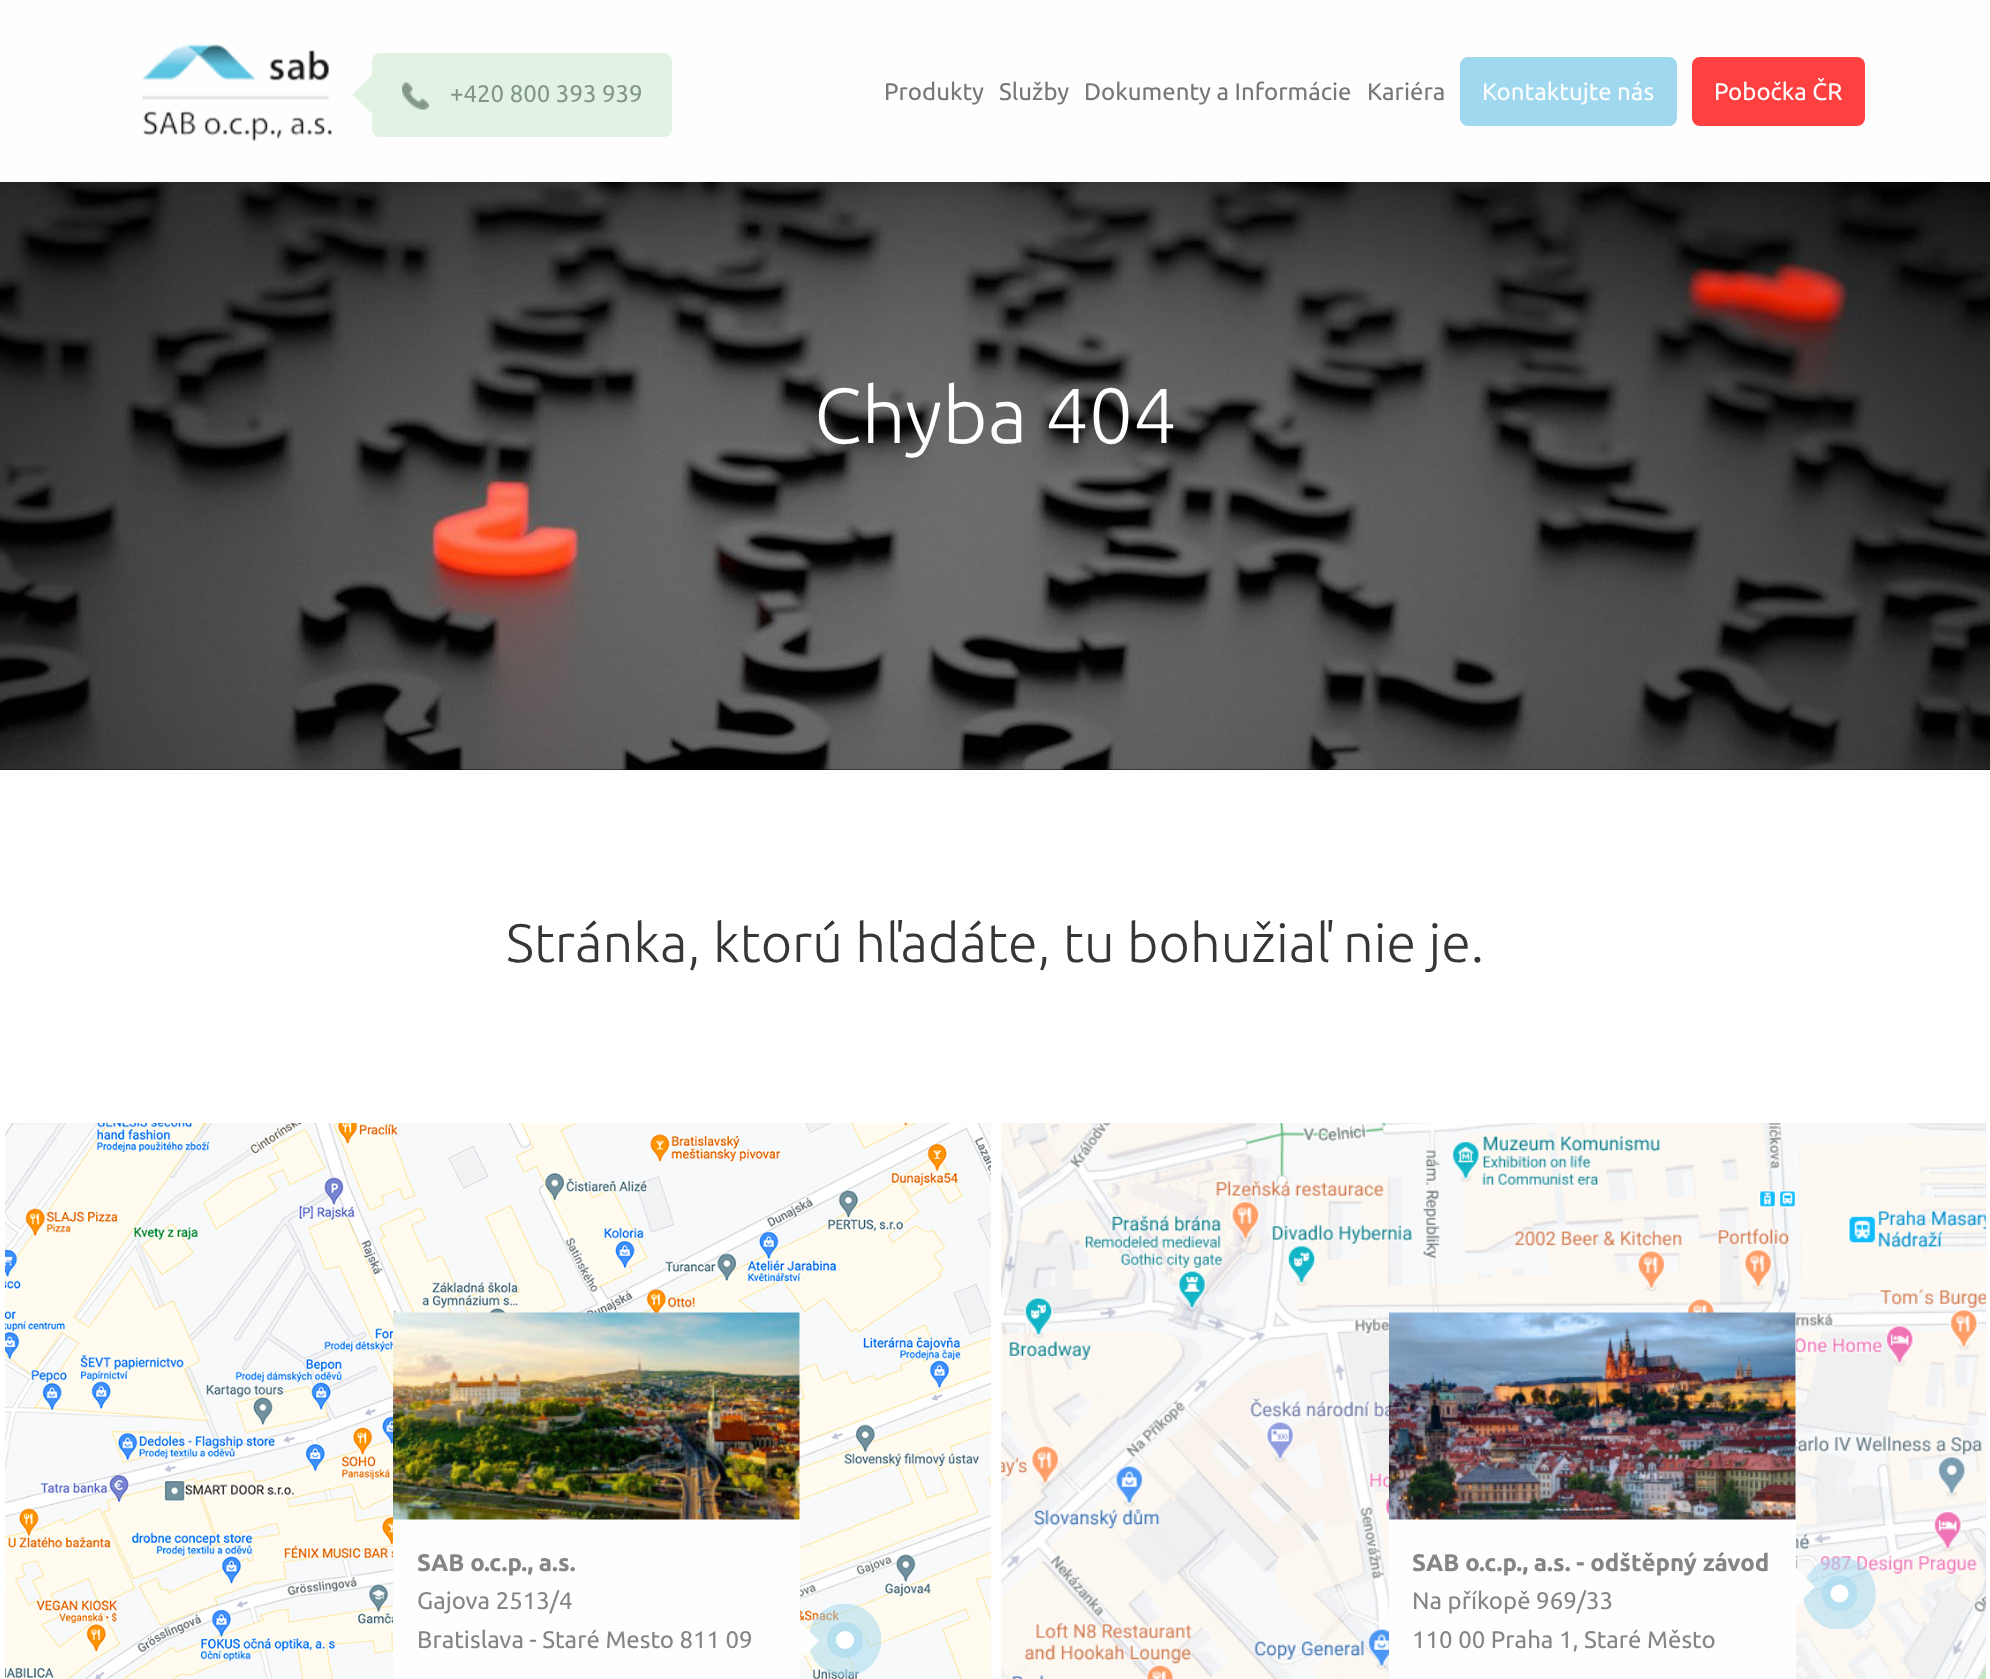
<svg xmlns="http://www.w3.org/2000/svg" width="1990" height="1679">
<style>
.a{font:24px Ubuntu;fill:#839785}
.b{font:24px Ubuntu;fill:#777}
.c{font:24px Ubuntu;fill:#fefefe}
.d{font:300 78px Ubuntu;fill:#fefefe}
.e{font:300 54px Ubuntu;fill:#363636}
.f{font:bold 24px Ubuntu;fill:#858586}
.g{font:24px Ubuntu;fill:#858586}
</style>
<defs>
<clipPath id="clip1"><path d="M809 1604h72v73H809z"/></clipPath>
<clipPath id="clip2"><path d="M1803 1557h74v72H1803z"/></clipPath>
</defs>
<rect width="100%" height="100%" fill="#fff"/>
<path fill="#0a0a0a" d="M0 769h1990v1H0z"/>
<image href="3.png" x="0" y="182" width="1990" height="588"/>
<path fill="#10101433" filter="blur(7.5px)" d="M0 0h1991v182H0z"/>
<path fill="#fefefe" d="M0 0h1990v182H0z"/>
<image href="1.png" x="142" y="44" width="190" height="98"/>
<rect fill="#e2f3e4" x="372" y="53" width="300" height="84" rx="8"/>
<path fill="#e2f3e4" d="M372 75v39l-19.5-19.5z"/>
<image href="2.png" x="402" y="82" width="27" height="28"/>
<rect fill="#a0d8ef" x="1460" y="57" width="217" height="69" rx="8"/>
<rect fill="#ff4040" x="1692" y="57" width="173" height="69" rx="8"/>
<image href="4.png" x="5" y="1123" width="986" height="556"/>
<path fill="#fefefe" d="M393 1313h407v366H393z"/>
<image href="5.png" x="393" y="1312" width="407" height="208"/>
<g clip-path="url(#clip1)">
<circle fill="#a0d8ef80" cx="845" cy="1640" r="36.5"/>
</g>
<circle fill="#a0d8ef80" cx="845" cy="1640" r="18"/>
<circle fill="#fff" cx="845" cy="1640" r="9"/>
<path fill="#fefefe" d="M799.5 1660.5v-39l19.5 19.5z"/>
<image href="6.png" x="1001" y="1123" width="985" height="556"/>
<path fill="#fefefe" d="M1389 1313h407v366H1389z"/>
<image href="7.png" x="1389" y="1312" width="407" height="208"/>
<g clip-path="url(#clip2)">
<circle fill="#a0d8ef80" cx="1839.5" cy="1593.5" r="36.5"/>
</g>
<circle fill="#a0d8ef80" cx="1839.5" cy="1593.5" r="18"/>
<circle fill="#fff" cx="1839.5" cy="1593.5" r="9"/>
<path fill="#fefefe" d="M1795.5 1606.5v-39l19.5 19.5z"/>
<text class="a" x="450" y="102">+420 800 393 939</text>
<text class="b" x="884" y="100">Produkty</text>
<text class="b" x="999" y="100">Služby</text>
<text class="b" x="1084" y="100">Dokumenty a Informácie</text>
<text class="b" x="1367" y="100">Kariéra</text>
<text class="c" x="1482" y="100">Kontaktujte nás</text>
<text class="c" x="1714" y="100">Pobočka ČR</text>
<text class="d" x="814" y="443">Chyba 404</text>
<text class="e" x="506" y="962">Stránka, ktorú hľadáte, tu bohužiaľ nie je.</text>
<text class="f" x="417" y="1571">SAB o.c.p., a.s.</text>
<text class="g" x="417" y="1609">Gajova 2513/4</text>
<text class="g" x="417" y="1648">Bratislava - Staré Mesto 811 09</text>
<text class="f" x="1412" y="1571">SAB o.c.p., a.s. - odštěpný závod</text>
<text class="g" x="1412" y="1609">Na příkopě 969/33</text>
<text class="g" x="1412" y="1648">110 00 Praha 1, Staré Město</text>
</svg>
